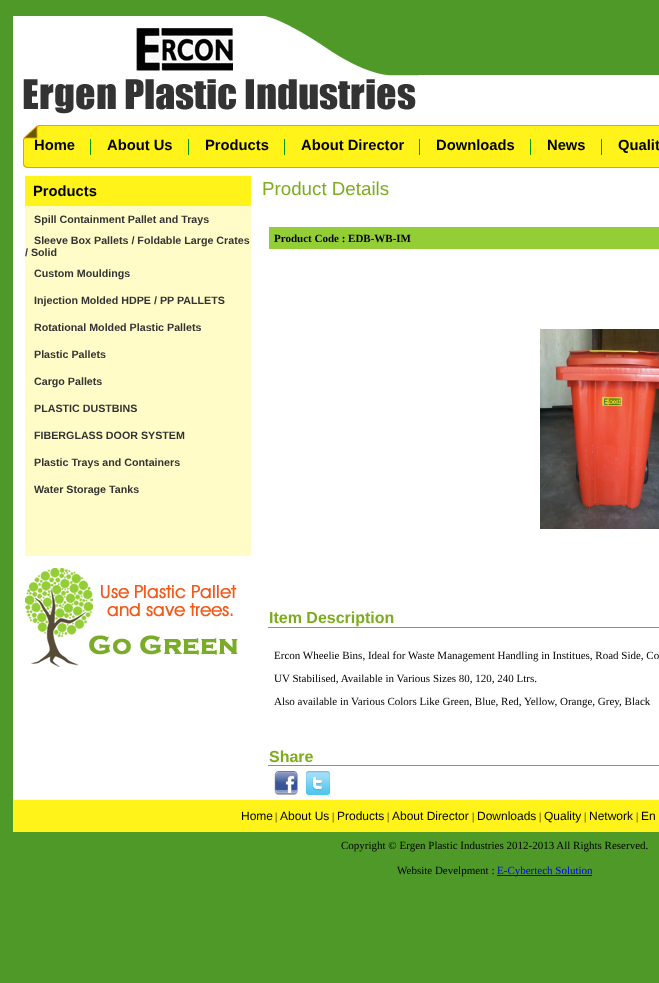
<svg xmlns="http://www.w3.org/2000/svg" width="659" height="983">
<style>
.a{font:bold 14.75px Liberation Sans;fill:#000}
.b{font:bold 10.7px Liberation Sans;fill:#333}
.c{font:18.75px Liberation Sans;fill:#7dac1e}
.d{font:bold 11px Liberation Serif;fill:#000}
.e{font:bold 16px Liberation Sans;fill:#7dac1e}
.f{font:11px Liberation Serif;fill:#000}
.g{font:12px Liberation Sans;fill:#000}
.h{font:11px Liberation Serif;fill:#00e}
</style>
<rect width="100%" height="100%" fill="#4f9928"/>
<image href="1.png" x="13" y="16" width="406" height="108"/>
<path fill="#fff" d="M419 75h240v49H419z"/>
<path fill="#fff" d="M13 124h646v44H13z"/>
<image href="2.png" x="23" y="125" width="636" height="43"/>
<path fill="#090" d="M90 139h1v16H90z"/>
<path fill="#090" d="M188 139h1v16H188z"/>
<path fill="#090" d="M284 139h1v16H284z"/>
<path fill="#090" d="M419 139h1v16H419z"/>
<path fill="#090" d="M530 139h1v16H530z"/>
<path fill="#090" d="M601 139h1v16H601z"/>
<path fill="#fff" d="M13 168h646v632H13z"/>
<path fill="#fff31a" d="M25 176h226v30H25z"/>
<path fill="#fffcc8" d="M25 206h226v350H25z"/>
<image href="3.png" x="25" y="568" width="213" height="99"/>
<path fill="#94ce36" d="M269 227h390v22H269z"/>
<image href="4.png" x="540" y="329" width="119" height="200"/>
<path fill="#7dac1e" d="M268 627h391v1H268z"/>
<path fill="#7dac1e" d="M268 765h391v1H268z"/>
<image href="5.png" x="274" y="771" width="24" height="24"/>
<image href="6.png" x="306" y="771" width="24" height="24"/>
<path fill="#fff31a" d="M13 800h646v32H13z"/>
<path fill="#00e" d="M497 875h95v1H497z"/>
<text class="a" x="34" y="150">Home</text>
<text class="a" x="107" y="150">About Us</text>
<text class="a" x="205" y="150">Products</text>
<text class="a" x="301" y="150">About Director</text>
<text class="a" x="436" y="150">Downloads</text>
<text class="a" x="547" y="150">News</text>
<text class="a" x="618" y="150">Qualit</text>
<text class="a" x="33" y="196">Products</text>
<text class="b" x="34" y="223">Spill Containment Pallet and Trays</text>
<text class="b" x="34" y="244">Sleeve Box Pallets / Foldable Large Crates</text>
<text class="b" x="25" y="256">/ Solid</text>
<text class="b" x="34" y="277">Custom Mouldings</text>
<text class="b" x="34" y="304">Injection Molded HDPE / PP PALLETS</text>
<text class="b" x="34" y="331">Rotational Molded Plastic Pallets</text>
<text class="b" x="34" y="358">Plastic Pallets</text>
<text class="b" x="34" y="385">Cargo Pallets</text>
<text class="b" x="34" y="412">PLASTIC DUSTBINS</text>
<text class="b" x="34" y="439">FIBERGLASS DOOR SYSTEM</text>
<text class="b" x="34" y="466">Plastic Trays and Containers</text>
<text class="b" x="34" y="493">Water Storage Tanks</text>
<text class="c" x="262" y="195">Product Details</text>
<text class="d" x="274" y="242">Product Code : EDB-WB-IM</text>
<text class="e" x="269" y="623">Item Description</text>
<text class="f" x="274" y="659">Ercon Wheelie Bins, Ideal for Waste Management Handling in Institues, Road Side, Co</text>
<text class="f" x="274" y="682">UV Stabilised, Available in Various Sizes 80, 120, 240 Ltrs.</text>
<text class="f" x="274" y="705">Also available in Various Colors Like Green, Blue, Red, Yellow, Orange, Grey, Black</text>
<text class="e" x="269" y="762">Share</text>
<text class="g" x="241" y="820">Home</text>
<text class="f" x="275" y="820">|</text>
<text class="g" x="280" y="820">About Us</text>
<text class="f" x="332" y="820">|</text>
<text class="g" x="337" y="820">Products</text>
<text class="f" x="387" y="820">|</text>
<text class="g" x="392" y="820">About Director</text>
<text class="f" x="472" y="820">|</text>
<text class="g" x="477" y="820">Downloads</text>
<text class="f" x="539" y="820">|</text>
<text class="g" x="544" y="820">Quality</text>
<text class="f" x="584" y="820">|</text>
<text class="g" x="589" y="820">Network</text>
<text class="f" x="636" y="820">|</text>
<text class="g" x="641" y="820">En</text>
<text class="f" x="341" y="849">Copyright © Ergen Plastic Industries 2012-2013 All Rights Reserved.</text>
<text class="f" x="397" y="874">Website Develpment :</text>
<text class="h" x="497" y="874">E-Cybertech Solution</text>
</svg>
